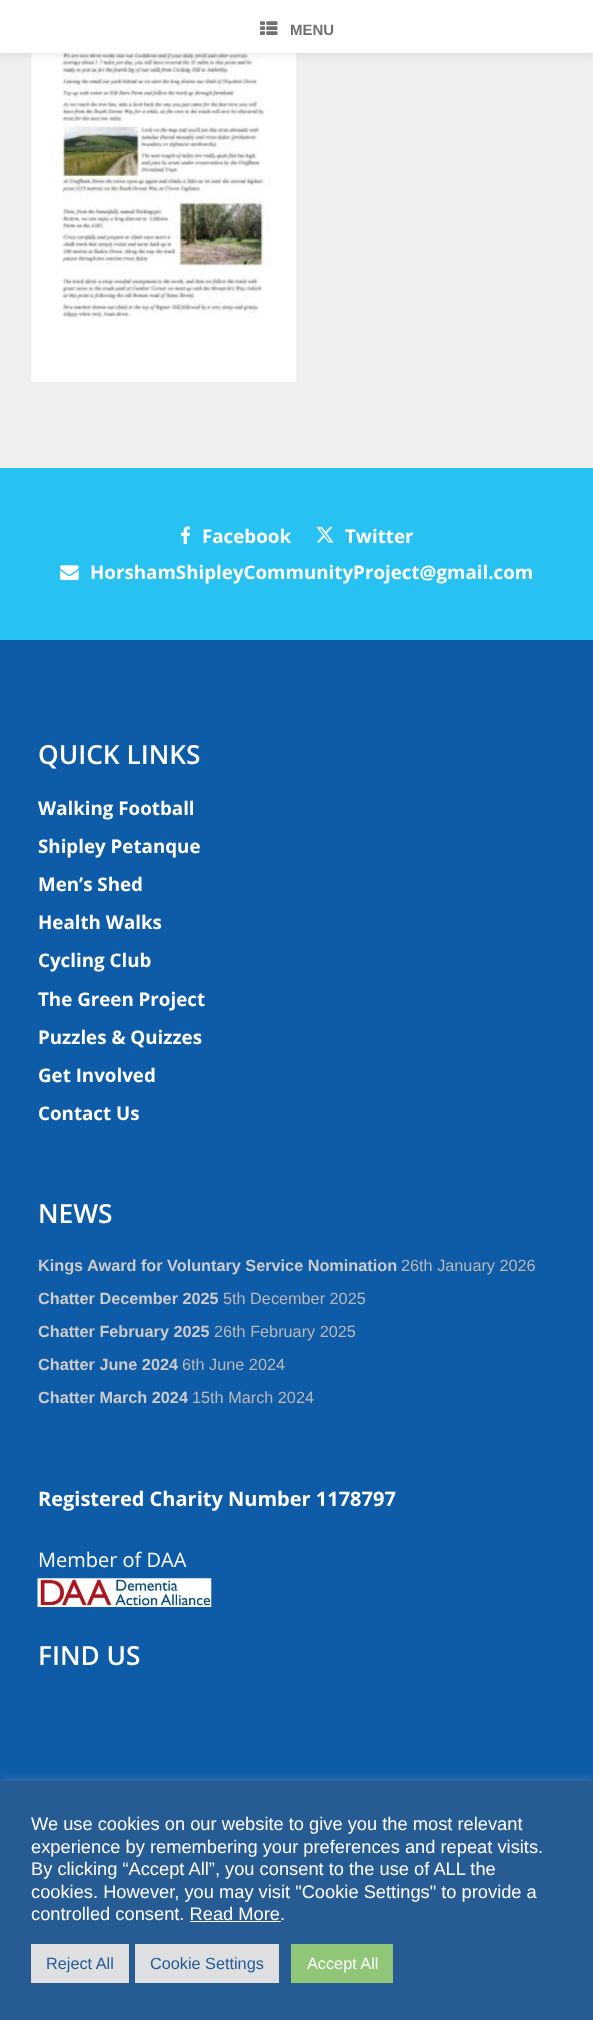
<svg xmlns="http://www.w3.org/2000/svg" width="593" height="2020">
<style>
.a{font:bold 15px Liberation Sans;fill:#707070}
.b{font:bold 18.75px Open Sans;fill:#fff}
.c{font:600 26.25px Open Sans;fill:#fff}
.d{font:bold 16.25px Liberation Sans;fill:#ccc}
.e{font:16.25px Liberation Sans;fill:#b9b9b9}
.f{font:bold 20px Open Sans;fill:#fff}
.g{font:20px Open Sans;fill:#fff}
.h{font:18.3px Liberation Sans;fill:#fff}
.i{font:16.25px Liberation Sans;fill:#265b94}
.j{font:16.25px Liberation Sans;fill:#fff}
</style>
<defs>
<clipPath id="clip1"><path d="M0 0h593v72h-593zm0 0h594v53h-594z" clip-rule="evenodd"/></clipPath>
</defs>
<rect width="100%" height="100%" fill="#efefef"/>
<path fill="#fff" d="M0 0h593v53H0z"/>
<image href="2.png" x="31" y="53" width="266" height="329"/>
<g clip-path="url(#clip1)">
<path fill="#70707033" filter="blur(6px)" d="M0 0h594v53H0z"/>
</g>
<image href="1.png" x="260" y="21" width="18" height="14"/>
<path fill="#27c1f2" d="M0 468h593v172H0z"/>
<image href="3.png" x="181" y="526" width="10" height="18"/>
<image href="4.png" x="316" y="526" width="18" height="17"/>
<image href="5.png" x="60" y="565" width="19" height="16"/>
<path fill="#0e5ba8" d="M0 640h593v1141H0z"/>
<image href="6.png" x="37" y="1578" width="175" height="29"/>
<path fill="#acabab4d" filter="blur(6px)" d="M0 1780h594v239H0z"/>
<path fill="#265b94" d="M0 1781h593v239H0z"/>
<path fill="#fff" d="M190 1921h91v1H190z"/>
<path fill="#dedfe0" d="M31 1944h98v39H31z"/>
<path fill="#dedfe0" d="M135 1944h144v39H135z"/>
<path fill="#8fc678" d="M291 1944h102v39H291z"/>
<text class="a" x="290" y="35">MENU</text>
<text class="b" x="202" y="543">Facebook</text>
<text class="b" x="345" y="543">Twitter</text>
<text class="b" x="90" y="579">HorshamShipleyCommunityProject@gmail.com</text>
<text class="c" x="38" y="764">QUICK LINKS</text>
<text class="b" x="38" y="815">Walking Football</text>
<text class="b" x="38" y="853">Shipley Petanque</text>
<text class="b" x="38" y="891">Men’s Shed</text>
<text class="b" x="38" y="929">Health Walks</text>
<text class="b" x="38" y="967">Cycling Club</text>
<text class="b" x="38" y="1006">The Green Project</text>
<text class="b" x="38" y="1044">Puzzles &amp; Quizzes</text>
<text class="b" x="38" y="1082">Get Involved</text>
<text class="b" x="38" y="1120">Contact Us</text>
<text class="c" x="38" y="1223">NEWS</text>
<text class="d" x="38" y="1271">Kings Award for Voluntary Service Nomination</text>
<text class="e" x="401" y="1271">26th January 2026</text>
<text class="d" x="38" y="1304">Chatter December 2025</text>
<text class="e" x="223" y="1304">5th December 2025</text>
<text class="d" x="38" y="1337">Chatter February 2025</text>
<text class="e" x="214" y="1337">26th February 2025</text>
<text class="d" x="38" y="1370">Chatter June 2024</text>
<text class="e" x="182" y="1370">6th June 2024</text>
<text class="d" x="38" y="1403">Chatter March 2024</text>
<text class="e" x="192" y="1403">15th March 2024</text>
<text class="f" x="38" y="1506">Registered Charity Number 1178797</text>
<text class="g" x="38" y="1567">Member of DAA</text>
<text class="c" x="38" y="1665">FIND US</text>
<text class="h" x="31" y="1830">We use cookies on our website to give you the most relevant</text>
<text class="h" x="31" y="1853">experience by remembering your preferences and repeat visits.</text>
<text class="h" x="31" y="1875">By clicking “Accept All”, you consent to the use of ALL the</text>
<text class="h" x="31" y="1898">cookies. However, you may visit "Cookie Settings" to provide a</text>
<text class="h" x="31" y="1920">controlled consent. Read More.</text>
<text class="i" x="46" y="1969">Reject All</text>
<text class="i" x="150" y="1969">Cookie Settings</text>
<text class="j" x="307" y="1969">Accept All</text>
</svg>
